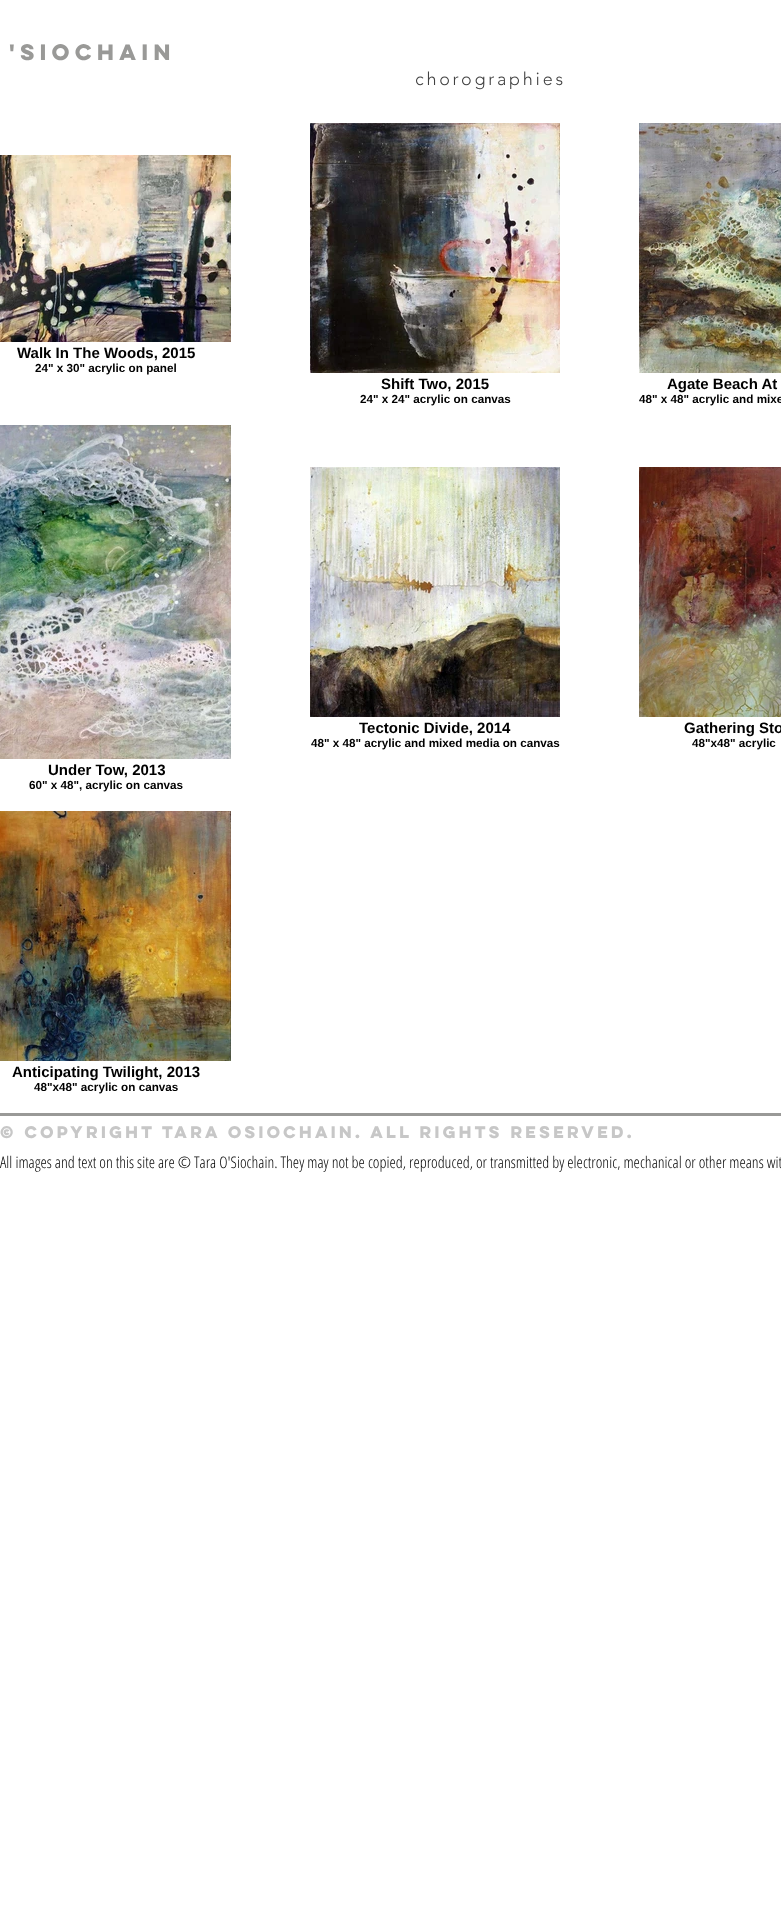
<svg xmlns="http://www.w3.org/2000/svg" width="781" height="1910">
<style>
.a{font:bold 20px 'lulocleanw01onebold';letter-spacing:1px;fill:#999997}
.b{font:300 18px 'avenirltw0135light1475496';letter-spacing:2.75px;fill:#414141}
.c{font:bold 15px Liberation Sans;fill:#000}
.d{font:bold 11.7px Liberation Sans;fill:#000}
.e{font:bold 15px 'lulocleanw01onebold';fill:#c7c7c7}
.f{font:300 16px Open Sans Condensed;fill:#000}
</style>
<rect width="100%" height="100%" fill="#fff"/>
<image href="1.png" x="0" y="155" width="231" height="187"/>
<image href="2.png" x="310" y="123" width="250" height="250"/>
<image href="3.png" x="639" y="123" width="142" height="250"/>
<image href="4.png" x="310" y="467" width="250" height="250"/>
<image href="5.png" x="639" y="467" width="142" height="250"/>
<image href="6.png" x="0" y="425" width="231" height="334"/>
<image href="7.png" x="0" y="811" width="231" height="250"/>
<path fill="#999997" d="M0 1113h781v3H0z"/>
<text class="a" x="9" y="60">'Siochain</text>
<text class="b" x="415" y="85">chorographies</text>
<text class="c" x="17" y="358">Walk In The Woods, 2015</text>
<text class="d" x="35" y="372">24" x 30" acrylic on panel</text>
<text class="c" x="381" y="389">Shift Two, 2015</text>
<text class="d" x="360" y="403">24" x 24" acrylic on canvas</text>
<text class="c" x="667" y="389">Agate Beach At</text>
<text class="d" x="639" y="403">48" x 48" acrylic and mixe</text>
<text class="c" x="359" y="733">Tectonic Divide, 2014</text>
<text class="d" x="311" y="747">48" x 48" acrylic and mixed media on canvas</text>
<text class="c" x="684" y="733">Gathering Sto</text>
<text class="d" x="692" y="747">48"x48" acrylic</text>
<text class="c" x="48" y="775">Under Tow, 2013</text>
<text class="d" x="29" y="789">60" x 48", acrylic on canvas</text>
<text class="c" x="12" y="1077">Anticipating Twilight, 2013</text>
<text class="d" x="34" y="1091">48"x48" acrylic on canvas</text>
<text class="e" x="0" y="1138">© Copyright Tara OSiochain. All rights reserved.</text>
<text class="f" x="0" y="1168">All images and text on this site are © Tara O'Siochain. They may not be copied, reproduced, or transmitted by electronic, mechanical or other means wit</text>
</svg>
